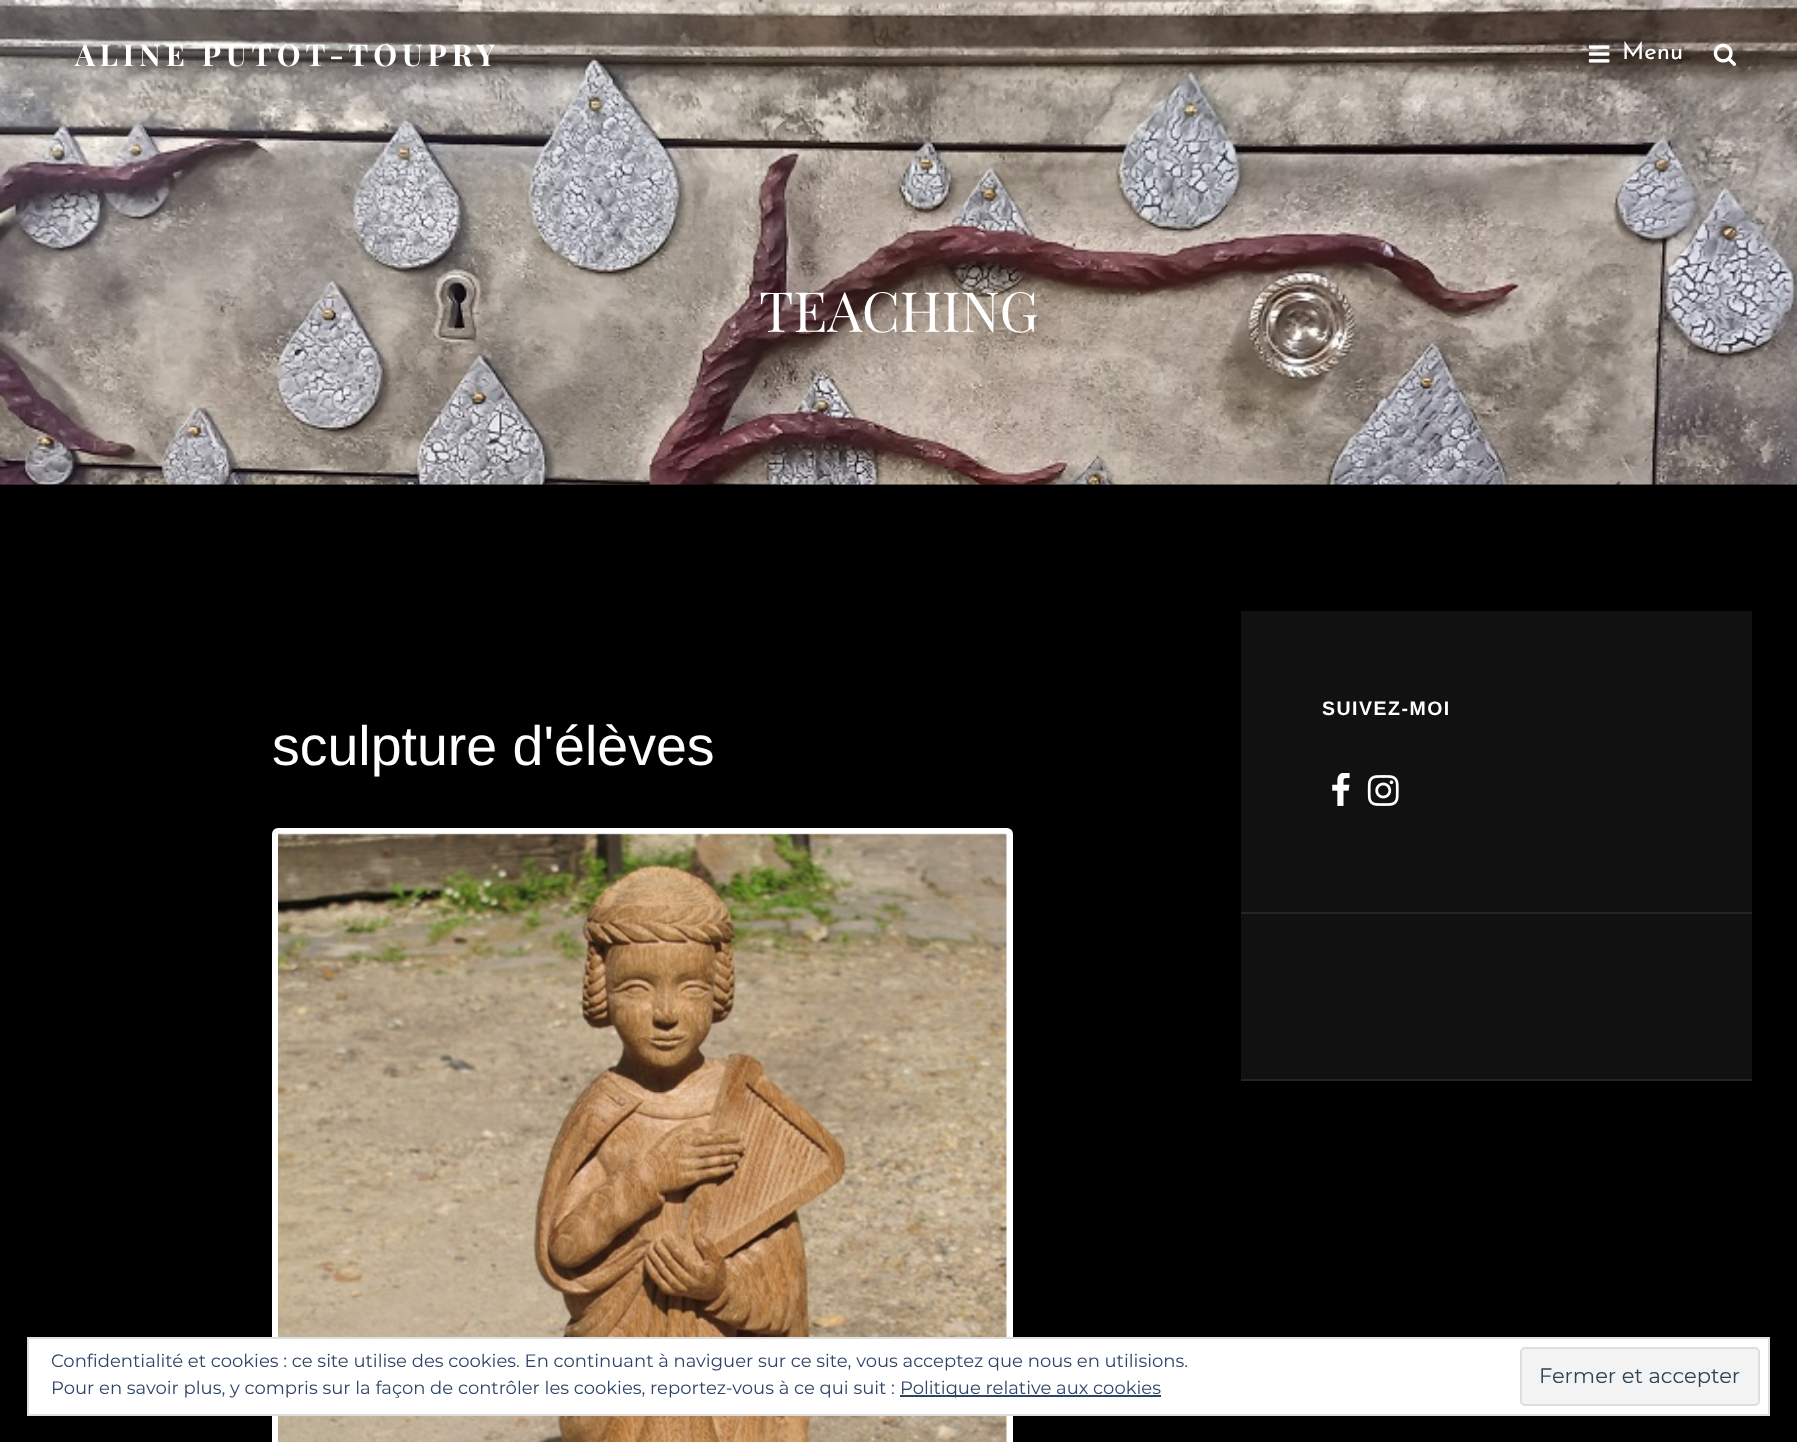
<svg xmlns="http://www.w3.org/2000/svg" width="1797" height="1442">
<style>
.a{font:bold 30px Playfair Display;letter-spacing:5px;fill:#fff}
.b{font:24px Josefin Sans;fill:#fff}
.c{font:55.5px Playfair Display;fill:#fff}
.d{font:bold 19.5px Liberation Sans;letter-spacing:1.5px;fill:#fff}
.e{font:55.5px Liberation Sans;fill:#fff}
.f{font:18px Montserrat;fill:#2e4467}
.g{font:21px Montserrat;fill:#2e4453}
</style>
<rect width="100%" height="100%" fill="#000"/>
<path fill="#111" d="M0 484h1797v1H0z"/>
<image href="3.png" x="0" y="0" width="1797" height="485"/>
<image href="1.png" x="1588" y="45" width="22" height="18"/>
<image href="2.png" x="1713" y="43" width="23" height="23"/>
<path fill="#111" d="M1241 611h511v468H1241z"/>
<path fill="#252525" d="M1241 912h511v2H1241z"/>
<image href="4.png" x="1332" y="773" width="18" height="33"/>
<image href="5.png" x="1367" y="775" width="32" height="31"/>
<path fill="#252525" d="M1241 1079h511v2H1241z"/>
<rect fill="#fff" stroke="#fff" stroke-width="6" x="275" y="831" width="735" height="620" rx="3"/>
<image href="6.png" x="278" y="833" width="729" height="609"/>
<path fill="#fff" stroke="#dedede" stroke-width="2" d="M28 1338h1741v77H28z"/>
<path fill="#2e4467" d="M900 1395h261v2H900z"/>
<rect fill="#f3f3f3" stroke="#dedede" stroke-width="2" x="1521" y="1348" width="238" height="57" rx="4"/>
<text class="a" x="75" y="66">ALINE PUTOT-TOUPRY</text>
<text class="b" x="1622" y="59">Menu</text>
<text class="c" x="759" y="332">TEACHING</text>
<text class="d" x="1322" y="715">SUIVEZ-MOI</text>
<text class="e" x="272" y="765">sculpture d'élèves</text>
<text class="f" x="51" y="1367">Confidentialité et cookies : ce site utilise des cookies. En continuant à naviguer sur ce site, vous acceptez que nous en utilisions.</text>
<text class="f" x="51" y="1394">Pour en savoir plus, y compris sur la façon de contrôler les cookies, reportez-vous à ce qui suit :</text>
<text class="f" x="900" y="1394">Politique relative aux cookies</text>
<text class="g" x="1539" y="1383">Fermer et accepter</text>
</svg>
